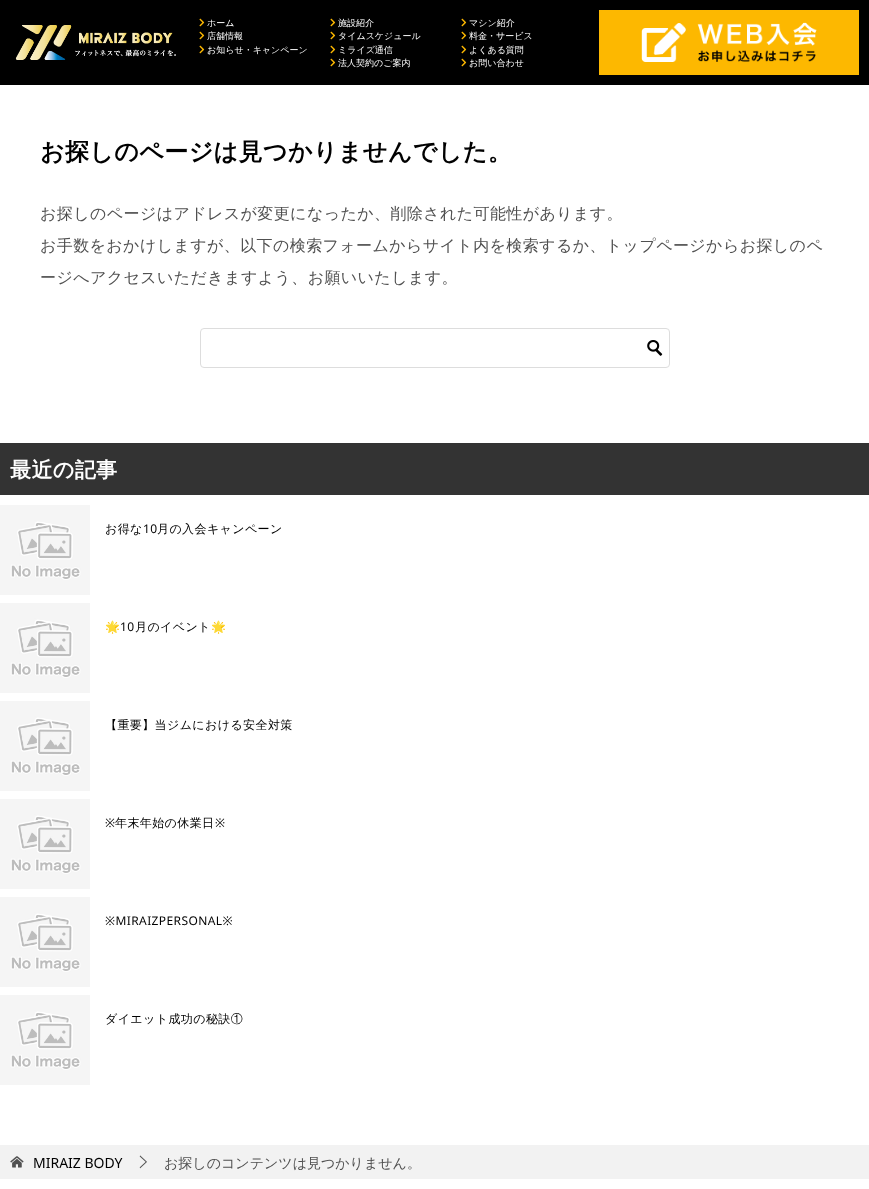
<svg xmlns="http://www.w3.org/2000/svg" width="869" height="1189">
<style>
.a{font:500 9px WenQuanYi Zen Hei;fill:#fff}
.b{font:bold 24px WenQuanYi Zen Hei;letter-spacing:0.4px;fill:#000}
.c{font:500 16px WenQuanYi Zen Hei;letter-spacing:0.4px;fill:#505050}
.d{font:bold 21px WenQuanYi Zen Hei;letter-spacing:0.4px;fill:#fff}
.e{font:500 12px WenQuanYi Zen Hei;letter-spacing:0.4px;fill:#000}
.f{font:12px Noto Sans;letter-spacing:0.4px;fill:#000}
.g{font:12px Noto Color Emoji;letter-spacing:0.4px;fill:#000}
.h{font:14px Noto Sans;fill:#000}
.i{font:500 14px WenQuanYi Zen Hei;fill:#505050}
</style>
<rect width="100%" height="100%" fill="#fff"/>
<path fill="#000" d="M0 0h869v85H0z"/>
<image href="1.png" x="15" y="25" width="161" height="35"/>
<image href="2.png" x="199" y="18" width="6" height="9"/>
<image href="2.png" x="330" y="18" width="6" height="9"/>
<image href="2.png" x="461" y="18" width="6" height="9"/>
<image href="2.png" x="199" y="31" width="6" height="9"/>
<image href="2.png" x="330" y="31" width="6" height="9"/>
<image href="2.png" x="461" y="31" width="6" height="9"/>
<image href="2.png" x="199" y="45" width="6" height="9"/>
<image href="2.png" x="330" y="45" width="6" height="9"/>
<image href="2.png" x="461" y="45" width="6" height="9"/>
<image href="2.png" x="330" y="58" width="6" height="9"/>
<image href="2.png" x="461" y="58" width="6" height="9"/>
<path fill="#fdb800" d="M599 10h260v65H599z"/>
<image href="3.png" x="641" y="22" width="176" height="40"/>
<rect fill="none" stroke="#ddd" x="200.5" y="328.5" width="469" height="39" rx="3.5"/>
<image href="4.png" x="647" y="340" width="16" height="16"/>
<path fill="#333" d="M0 443h869v52H0z"/>
<image href="5.png" x="0" y="505" width="90" height="90"/>
<image href="5.png" x="0" y="603" width="90" height="90"/>
<image href="6.png" x="0" y="701" width="90" height="90"/>
<image href="7.png" x="0" y="799" width="90" height="90"/>
<image href="5.png" x="0" y="897" width="90" height="90"/>
<image href="5.png" x="0" y="995" width="90" height="90"/>
<path fill="#f2f2f2" d="M0 1145h869v34H0z"/>
<image href="8.png" x="10" y="1156" width="14" height="12"/>
<image href="9.png" x="139" y="1155" width="8" height="14"/>
<text class="a" x="207" y="26">ホーム</text>
<text class="a" x="338" y="26">施設紹介</text>
<text class="a" x="469" y="26">マシン紹介</text>
<text class="a" x="207" y="39">店舗情報</text>
<text class="a" x="338" y="39">タイムスケジュール</text>
<text class="a" x="469" y="39">料金・サービス</text>
<text class="a" x="207" y="53">お知らせ・キャンペーン</text>
<text class="a" x="338" y="53">ミライズ通信</text>
<text class="a" x="469" y="53">よくある質問</text>
<text class="a" x="338" y="66">法人契約のご案内</text>
<text class="a" x="469" y="66">お問い合わせ</text>
<text class="b" x="40" y="160">お探しのページは見つかりませんでした。</text>
<text class="c" x="40" y="219">お探しのページはアドレスが変更になったか、削除された可能性があります。</text>
<text class="c" x="40" y="251">お手数をおかけしますが、以下の検索フォームからサイト内を検索するか、トップページからお探しのペ</text>
<text class="c" x="40" y="283">ージへアクセスいただきますよう、お願いいたします。</text>
<text class="d" x="10" y="477">最近の記事</text>
<text class="e" x="105" y="533">お得な</text>
<text class="f" x="143" y="533">10</text>
<text class="e" x="157" y="533">月の入会キャンペーン</text>
<text class="g" x="105" y="631">🌟</text>
<text class="f" x="120" y="631">10</text>
<text class="e" x="135" y="631">月のイベント</text>
<text class="g" x="211" y="631">🌟</text>
<text class="e" x="105" y="729">【重要】当ジムにおける安全対策</text>
<text class="f" x="105" y="827">※</text>
<text class="e" x="115" y="827">年末年始の休業日</text>
<text class="f" x="215" y="827">※</text>
<text class="f" x="105" y="925">※MIRAIZPERSONAL※</text>
<text class="e" x="105" y="1023">ダイエット成功の秘訣①</text>
<text class="h" x="33" y="1168">MIRAIZ BODY</text>
<text class="i" x="164" y="1168">お探しのコンテンツは見つかりません。</text>
</svg>
